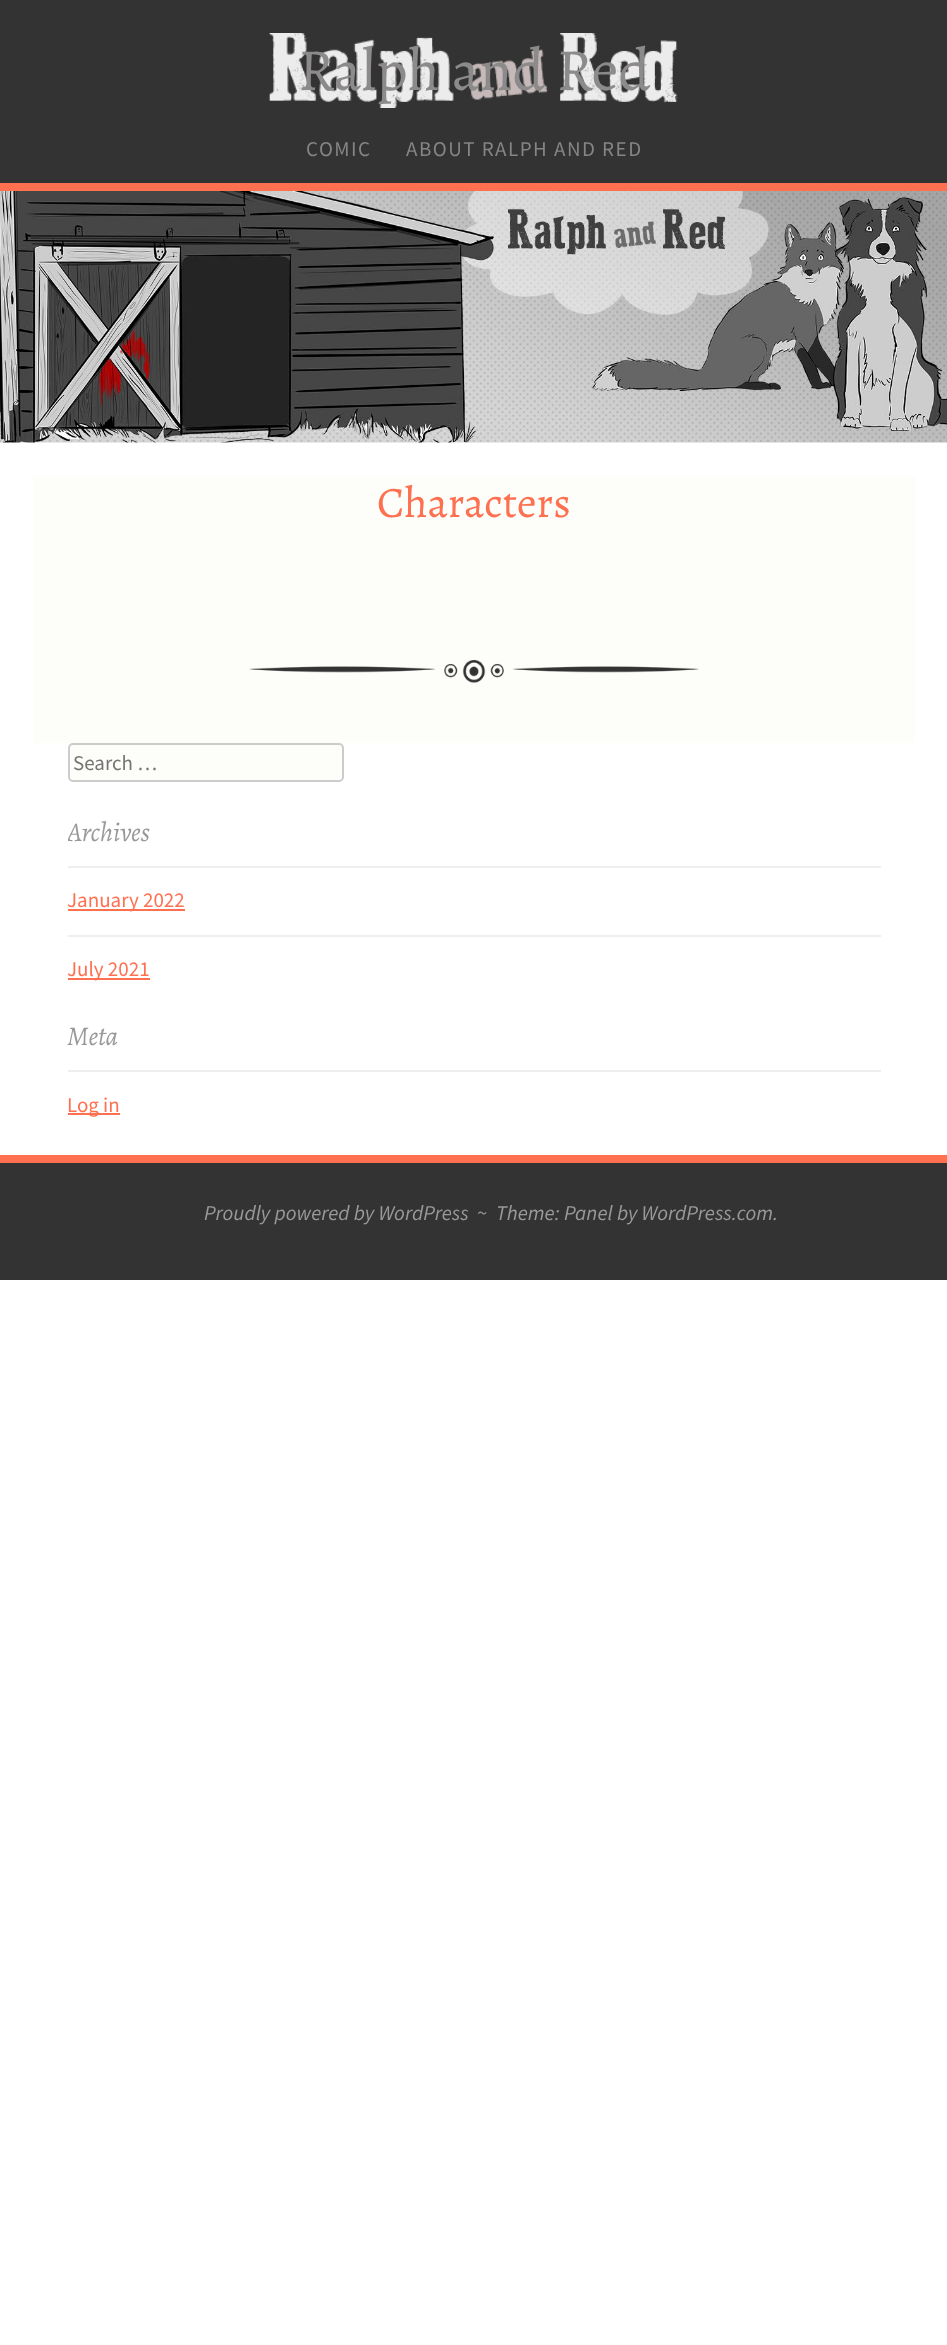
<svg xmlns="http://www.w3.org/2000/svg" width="947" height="2345">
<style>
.a{font:60px Alegreya;fill:#8c8a8a}
.b{font:21px Source Sans Pro;letter-spacing:1.5px;fill:#858585}
.c{font:43.5px Alegreya;fill:#fe7050}
.d{font:21px Source Sans Pro;fill:#757575}
.e{font:italic 27px Alegreya;fill:#999}
.f{font:21px Source Sans Pro;fill:#fe7050}
.g{font:italic 21px Source Sans Pro;fill:#999}
</style>
<defs>
<clipPath id="clip1"><path d="M68 743h813v412H68z"/></clipPath>
</defs>
<rect width="100%" height="100%" fill="#fff"/>
<path fill="#333" d="M0 0h947v183H0z"/>
<path fill="#fe7050" d="M0 183h947v8H0z"/>
<image href="1.png" x="269" y="33" width="409" height="75"/>
<image href="2.png" x="0" y="191" width="947" height="252"/>
<path fill="#fdfdfa" d="M33 476h882v267H33z"/>
<image href="3.png" x="249" y="660" width="450" height="23"/>
<rect fill="#fdfdfa" stroke="#ccc" stroke-width="2" x="69" y="744" width="274" height="37" rx="4"/>
<path fill="#eee" d="M68 866h813v2H68z"/>
<path fill="#fe7050" d="M68 909h117v2H68z"/>
<path fill="#eee" d="M68 935h813v2H68z"/>
<path fill="#fe7050" d="M68 978h82v2H68z"/>
<path fill="#eee" d="M68 1070h813v2H68z"/>
<path fill="#fe7050" d="M68 1113h52v2H68z"/>
<path fill="#333" d="M0 1163h947v117H0z"/>
<path fill="#fe7050" d="M0 1155h947v8H0z"/>
<text class="a" x="298" y="90">Ralph and Red</text>
<text class="b" x="306" y="156">COMIC</text>
<text class="b" x="406" y="156">ABOUT RALPH AND RED</text>
<text class="c" x="377" y="517">Characters</text>
<text class="d" x="73" y="770">Search …</text>
<g clip-path="url(#clip1)">
<text class="e" x="67" y="841">Archives</text>
</g>
<text class="f" x="67" y="907">January 2022</text>
<text class="f" x="67" y="976">July 2021</text>
<text class="e" x="67" y="1045">Meta</text>
<text class="f" x="67" y="1112">Log in</text>
<text class="g" x="204" y="1220">Proudly powered by WordPress</text>
<text class="g" x="477" y="1220">~</text>
<text class="g" x="496" y="1220">Theme: Panel by WordPress.com.</text>
</svg>
